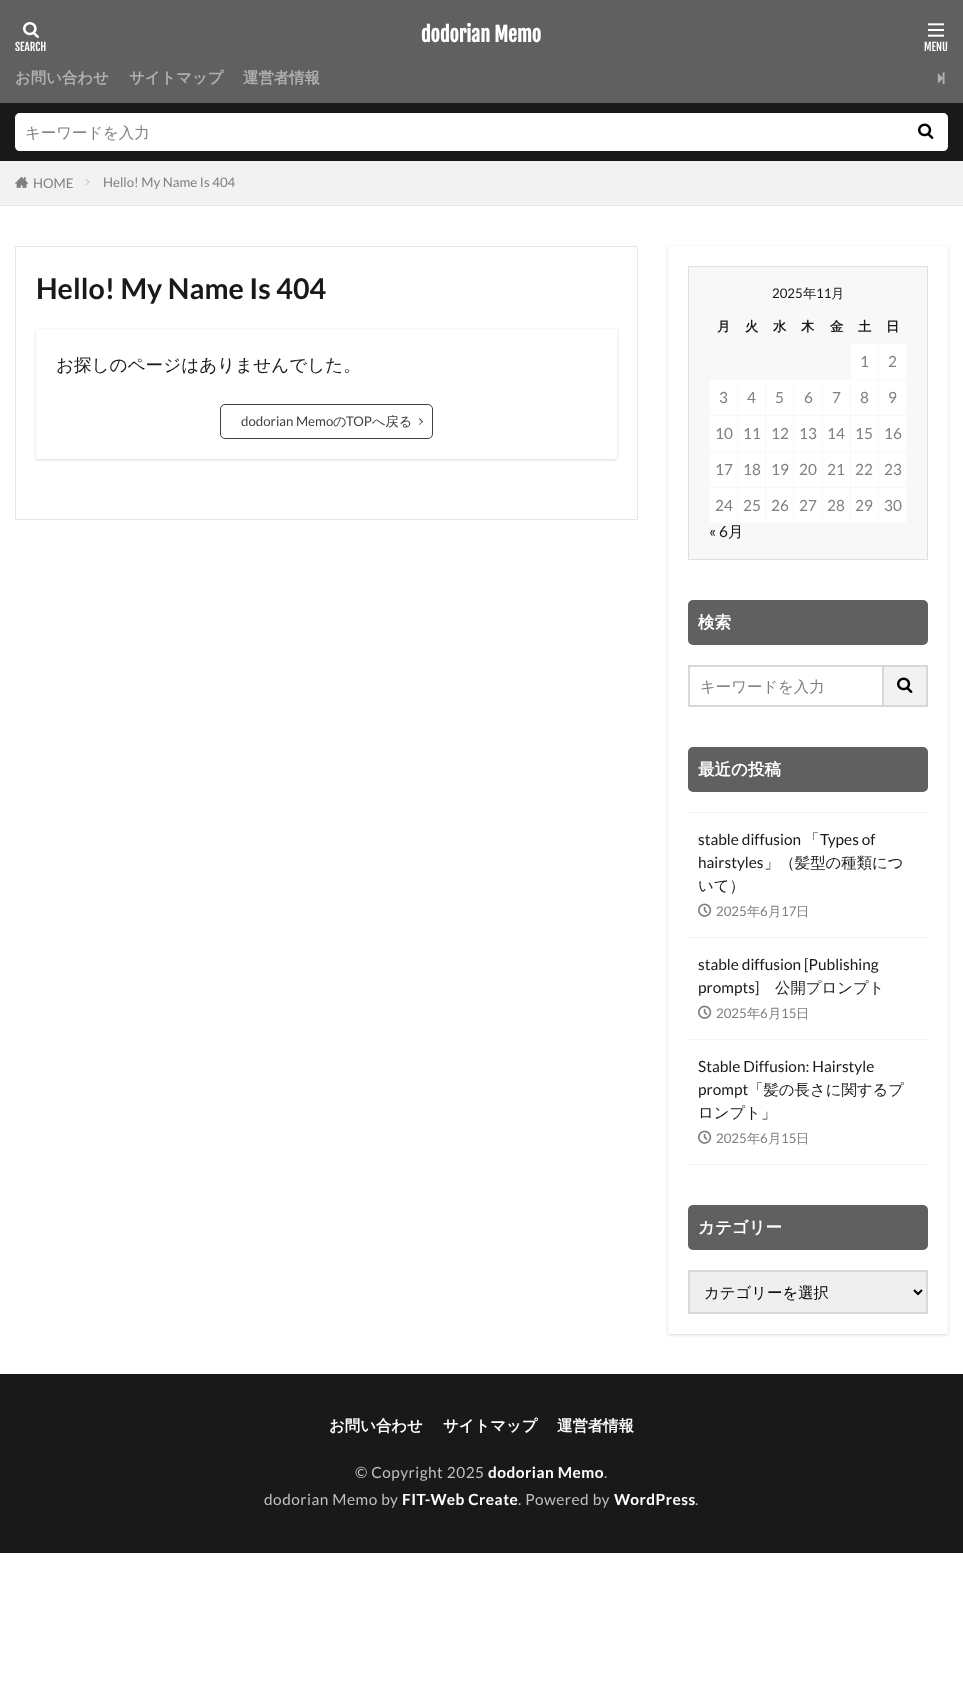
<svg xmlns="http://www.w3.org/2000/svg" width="963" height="1699">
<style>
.a{font:bold 20px Fjalla One;fill:#fff}
.b{font:11px Fjalla One;fill:#fff}
.c{font:bold 15.4px WenQuanYi Zen Hei;fill:#b0b0b0}
.d{font:500 15.4px WenQuanYi Zen Hei;fill:#7f7f7f}
.e{font:13.25px Lato;fill:#7f7f7f}
.f{font:bold 28.6px Lato;fill:#191919}
.g{font:500 17.6px WenQuanYi Zen Hei;fill:#191919}
.h{font:13.25px Lato;fill:#3f3f3f}
.i{font:500 13.25px WenQuanYi Zen Hei;fill:#3f3f3f}
.j{font:13.25px Lato;fill:#191919}
.k{font:500 13.25px WenQuanYi Zen Hei;fill:#191919}
.l{font:bold 13.25px WenQuanYi Zen Hei;fill:#191919}
.m{font:15.4px Lato;fill:#7f7f7f}
.n{font:15.4px Lato;fill:#191919}
.o{font:500 15.4px WenQuanYi Zen Hei;fill:#191919}
.p{font:bold 16.5px WenQuanYi Zen Hei;fill:#fff}
.q{font:500 13.25px WenQuanYi Zen Hei;fill:#7f7f7f}
.r{font:500 15.4px WenQuanYi Zen Hei;fill:#000}
.s{font:bold 15.4px WenQuanYi Zen Hei;fill:#fff}
.t{font:15.4px Lato;letter-spacing:0.5px;fill:#bfbfbf}
.u{font:bold 15.4px Lato;letter-spacing:0.5px;fill:#fff}
</style>
<defs>
<clipPath id="clip1"><path d="M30 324h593v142h-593zm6 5h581v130h-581z" clip-rule="evenodd"/></clipPath>
<clipPath id="clip2"><path d="M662 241h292v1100h-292zm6 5h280v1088h-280z" clip-rule="evenodd"/></clipPath>
</defs>
<rect width="100%" height="100%" fill="#fff"/>
<path fill="#606060" d="M0 0h963v103H0z"/>
<image href="1.png" x="23" y="22" width="16" height="16"/>
<image href="2.png" x="928" y="23" width="16" height="14"/>
<image href="3.png" x="937" y="72" width="8" height="13"/>
<path fill="#191919" d="M0 103h963v58H0z"/>
<path fill="#fff" d="M20 113h884v38h-884c-3 0-5-2-5-5v-28c0-3 2-5 5-5z"/>
<path fill="#fff" d="M904 113h39c3 0 5 2 5 5v28c0 3-2 5-5 5h-39z"/>
<image href="4.png" x="918" y="123" width="16" height="16"/>
<path fill="#f2f2f2" d="M0 161h963v44H0z"/>
<path fill="#e6e6e6" d="M0 205h963v1H0z"/>
<image href="5.png" x="15" y="176" width="14" height="12"/>
<path fill="#bfbfbf" d="M86 178.5l3.5 3.5l-.5 1l-3.5-4z"/>
<path fill="#bfbfbf" d="M89 181.5l.5 .5l-3.5 3.5l-.5-.5z"/>
<path fill="none" stroke="#e6e6e6" d="M15.5 246.5h622v273H15.5z"/>
<g clip-path="url(#clip1)">
<path fill="#00000026" filter="blur(1.5px)" d="M36 330h581v130H36z"/>
</g>
<rect fill="none" stroke="#3f3f3f" x="220.5" y="404.5" width="212" height="34" rx="4.5"/>
<path fill="#3f3f3f" d="M419.5 418l3.5 3.5l-.5 1l-3.5-3.5z"/>
<path fill="#3f3f3f" d="M422.5 421l.5 .5l-3.5 3.5l-.5-.5z"/>
<g clip-path="url(#clip2)">
<path fill="#00000026" filter="blur(1.5px)" d="M668 247h280v1088H668z"/>
</g>
<path fill="#f8f8f8" stroke="#dfdfdf" d="M688.5 266.5h239v293H688.5z"/>
<path fill="#fff" d="M851 344h27v35H851z"/>
<path fill="#fff" d="M879 344h27v35H879z"/>
<path fill="#fff" d="M710 380h27v35H710z"/>
<path fill="#fff" d="M738 380h27v35H738z"/>
<path fill="#fff" d="M766 380h27v35H766z"/>
<path fill="#fff" d="M794 380h28v35H794z"/>
<path fill="#fff" d="M823 380h27v35H823z"/>
<path fill="#fff" d="M851 380h27v35H851z"/>
<path fill="#fff" d="M879 380h27v35H879z"/>
<path fill="#fff" d="M710 416h27v35H710z"/>
<path fill="#fff" d="M738 416h27v35H738z"/>
<path fill="#fff" d="M766 416h27v35H766z"/>
<path fill="#fff" d="M794 416h28v35H794z"/>
<path fill="#fff" d="M823 416h27v35H823z"/>
<path fill="#fff" d="M851 416h27v35H851z"/>
<path fill="#fff" d="M879 416h27v35H879z"/>
<path fill="#fff" d="M710 452h27v35H710z"/>
<path fill="#fff" d="M738 452h27v35H738z"/>
<path fill="#fff" d="M766 452h27v35H766z"/>
<path fill="#fff" d="M794 452h28v35H794z"/>
<path fill="#fff" d="M823 452h27v35H823z"/>
<path fill="#fff" d="M851 452h27v35H851z"/>
<path fill="#fff" d="M879 452h27v35H879z"/>
<path fill="#fff" d="M710 488h27v35H710z"/>
<path fill="#fff" d="M738 488h27v35H738z"/>
<path fill="#fff" d="M766 488h27v35H766z"/>
<path fill="#fff" d="M794 488h28v35H794z"/>
<path fill="#fff" d="M823 488h27v35H823z"/>
<path fill="#fff" d="M851 488h27v35H851z"/>
<path fill="#fff" d="M879 488h27v35H879z"/>
<rect fill="#606060" x="688" y="600" width="240" height="45" rx="5"/>
<path fill="none" stroke="#d8d8d8" stroke-width="2" d="M689 666h194v40H689z"/>
<path fill="#f2f2f2" d="M884 667h42v38H884z"/>
<path fill="#d8d8d8" d="M884 665h44v2H884z"/>
<path fill="#d8d8d8" d="M926 665h2v42H926z"/>
<path fill="#d8d8d8" d="M884 705h44v2H884z"/>
<image href="6.png" x="897" y="677" width="16" height="16"/>
<rect fill="#606060" x="688" y="747" width="240" height="45" rx="5"/>
<path fill="none" stroke="#e6e6e6" stroke-dasharray="1 1" d="M688 812.5h240"/>
<path fill="none" stroke="#e6e6e6" stroke-dasharray="1 1" d="M688 937.5h240"/>
<image href="7.png" x="698" y="903" width="14" height="14"/>
<path fill="none" stroke="#e6e6e6" stroke-dasharray="1 1" d="M688 1039.5h240"/>
<image href="7.png" x="698" y="1005" width="14" height="14"/>
<path fill="none" stroke="#e6e6e6" stroke-dasharray="1 1" d="M688 1164.5h240"/>
<image href="7.png" x="698" y="1130" width="14" height="14"/>
<rect fill="#606060" x="688" y="1205" width="240" height="45" rx="5"/>
<path fill="#efefef" stroke="#d8d8d8" stroke-width="2" d="M689 1271h238v42H689z"/>
<path fill="none" stroke="#000" stroke-width="2" d="M914 1290l4 4l4-4"/>
<path fill="#191919" d="M0 1374h963v179H0z"/>
<text class="a" x="421" y="42">dodorian Memo</text>
<text class="b" x="15" y="51">SEARCH</text>
<text class="b" x="924" y="51">MENU</text>
<text class="c" x="15" y="83">お問い合わせ</text>
<text class="c" x="129" y="83">サイトマップ</text>
<text class="c" x="243" y="83">運営者情報</text>
<text class="d" x="25" y="138">キーワードを入力</text>
<text class="e" x="33" y="188">HOME</text>
<text class="e" x="103" y="187">Hello! My Name Is 404</text>
<text class="f" x="36" y="299">Hello! My Name Is 404</text>
<text class="g" x="56" y="371">お探しのページはありませんでした。</text>
<text class="h" x="241" y="426">dodorian Memo</text>
<text class="i" x="333" y="426">の</text>
<text class="h" x="346" y="426">TOP</text>
<text class="i" x="372" y="426">へ戻る</text>
<text class="j" x="772" y="298">2025</text>
<text class="k" x="803" y="298">年</text>
<text class="j" x="816" y="298">11</text>
<text class="k" x="831" y="298">月</text>
<text class="l" x="717" y="331">月</text>
<text class="l" x="745" y="331">火</text>
<text class="l" x="773" y="331">水</text>
<text class="l" x="801" y="331">木</text>
<text class="l" x="830" y="331">金</text>
<text class="l" x="858" y="331">土</text>
<text class="l" x="886" y="331">日</text>
<text class="m" x="860" y="367">1</text>
<text class="m" x="888" y="367">2</text>
<text class="m" x="719" y="403">3</text>
<text class="m" x="747" y="403">4</text>
<text class="m" x="775" y="403">5</text>
<text class="m" x="804" y="403">6</text>
<text class="m" x="832" y="403">7</text>
<text class="m" x="860" y="403">8</text>
<text class="m" x="888" y="403">9</text>
<text class="m" x="715" y="439">10</text>
<text class="m" x="743" y="439">11</text>
<text class="m" x="771" y="439">12</text>
<text class="m" x="799" y="439">13</text>
<text class="m" x="827" y="439">14</text>
<text class="m" x="855" y="439">15</text>
<text class="m" x="884" y="439">16</text>
<text class="m" x="715" y="475">17</text>
<text class="m" x="743" y="475">18</text>
<text class="m" x="771" y="475">19</text>
<text class="m" x="799" y="475">20</text>
<text class="m" x="827" y="475">21</text>
<text class="m" x="855" y="475">22</text>
<text class="m" x="884" y="475">23</text>
<text class="m" x="715" y="511">24</text>
<text class="m" x="743" y="511">25</text>
<text class="m" x="771" y="511">26</text>
<text class="m" x="799" y="511">27</text>
<text class="m" x="827" y="511">28</text>
<text class="m" x="855" y="511">29</text>
<text class="m" x="884" y="511">30</text>
<text class="n" x="709" y="537">« 6</text>
<text class="o" x="728" y="537">月</text>
<text class="p" x="698" y="628">検索</text>
<text class="d" x="700" y="692">キーワードを入力</text>
<text class="p" x="698" y="775">最近の投稿</text>
<text class="n" x="698" y="845">stable diffusion</text>
<text class="o" x="804" y="845">「</text>
<text class="n" x="820" y="845">Types of</text>
<text class="n" x="698" y="868">hairstyles</text>
<text class="o" x="764" y="868">」（髪型の種類につ</text>
<text class="o" x="698" y="891">いて）</text>
<text class="e" x="716" y="916">2025</text>
<text class="q" x="747" y="916">年</text>
<text class="e" x="760" y="916">6</text>
<text class="q" x="768" y="916">月</text>
<text class="e" x="781" y="916">17</text>
<text class="q" x="796" y="916">日</text>
<text class="n" x="698" y="970">stable diffusion [Publishing</text>
<text class="n" x="698" y="993">prompts]</text>
<text class="o" x="775" y="993">公開プロンプト</text>
<text class="e" x="716" y="1018">2025</text>
<text class="q" x="747" y="1018">年</text>
<text class="e" x="760" y="1018">6</text>
<text class="q" x="768" y="1018">月</text>
<text class="e" x="781" y="1018">15</text>
<text class="q" x="796" y="1018">日</text>
<text class="n" x="698" y="1072">Stable Diffusion: Hairstyle</text>
<text class="n" x="698" y="1095">prompt</text>
<text class="o" x="748" y="1095">「髪の長さに関するプ</text>
<text class="o" x="698" y="1118">ロンプト」</text>
<text class="e" x="716" y="1143">2025</text>
<text class="q" x="747" y="1143">年</text>
<text class="e" x="760" y="1143">6</text>
<text class="q" x="768" y="1143">月</text>
<text class="e" x="781" y="1143">15</text>
<text class="q" x="796" y="1143">日</text>
<text class="p" x="698" y="1233">カテゴリー</text>
<text class="r" x="704" y="1298">カテゴリーを選択</text>
<text class="s" x="329" y="1431">お問い合わせ</text>
<text class="s" x="443" y="1431">サイトマップ</text>
<text class="s" x="557" y="1431">運営者情報</text>
<text class="t" x="355" y="1478">© Copyright 2025</text>
<text class="u" x="488" y="1478">dodorian Memo</text>
<text class="t" x="604" y="1478">.</text>
<text class="t" x="264" y="1505">dodorian Memo by</text>
<text class="u" x="402" y="1505">FIT-Web Create</text>
<text class="t" x="518" y="1505">. Powered by</text>
<text class="u" x="614" y="1505">WordPress</text>
<text class="t" x="695" y="1505">.</text>
</svg>
